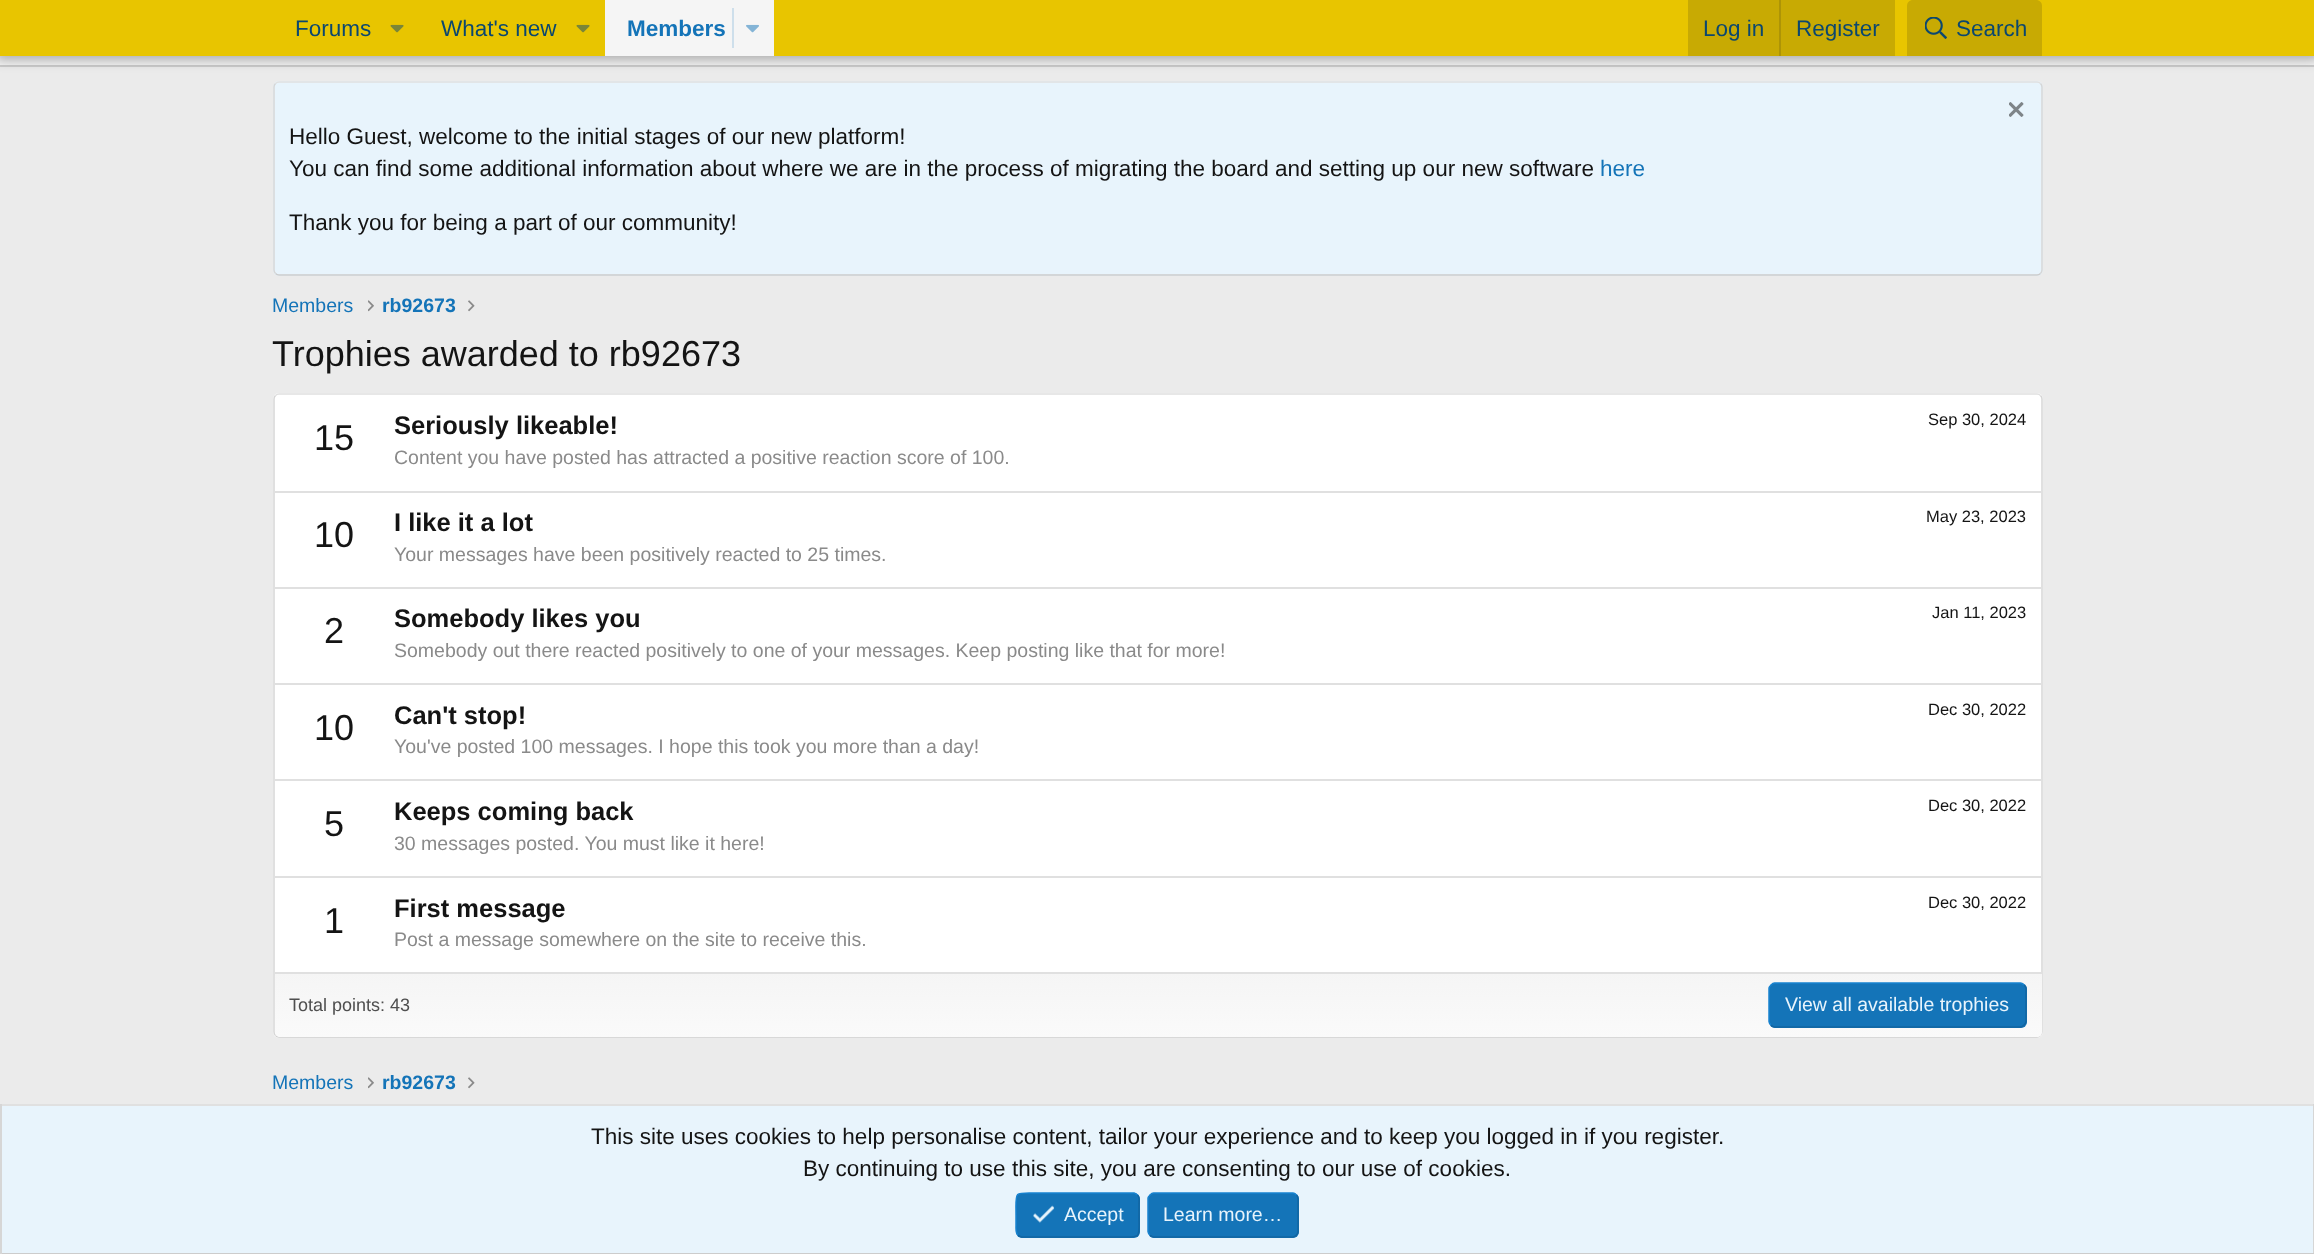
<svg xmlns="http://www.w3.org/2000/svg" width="2314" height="1254">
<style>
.a{font:22.5px Liberation Sans;fill:#0b476f}
.b{font:bold 22.5px Liberation Sans;fill:#1474b8}
.c{font:22.5px Liberation Sans;fill:#141414}
.d{font:22.5px Liberation Sans;fill:#1474b8}
.e{font:19.5px Liberation Sans;fill:#1474b8}
.f{font:bold 19.5px Liberation Sans;fill:#1474b8}
.g{font:36px Liberation Sans;fill:#141414}
.h{font:bold 25.5px Liberation Sans;fill:#141414}
.i{font:16.5px Liberation Sans;fill:#141414}
.j{font:19.5px Liberation Sans;fill:#8a8a8a}
.k{font:18px Liberation Sans;fill:#4f4f4f}
.l{font:19.5px Liberation Sans;fill:#e8f4fc}
</style>
<defs>
<linearGradient id="g1" gradientUnits="userSpaceOnUse" x1="1158" y1="973" x2="1158" y2="1037"><stop offset="0" stop-color="#f5f5f5"/><stop offset="1" stop-color="#fafafa"/></linearGradient>
</defs>
<rect width="100%" height="100%" fill="#ebebeb"/>
<path fill="#f5f5f5" d="M0 56h2314v9H0z"/>
<path fill="#ccc" d="M0 65h2314v2H0z"/>
<path fill="#0000004d" filter="blur(6px)" d="M-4 -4h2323v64H-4z"/>
<path fill="#e8c500" d="M0 0h2314v56H0z"/>
<image href="1.png" x="390" y="24" width="14" height="9"/>
<image href="1.png" x="576" y="24" width="14" height="9"/>
<path fill="#f5f5f5" d="M605 0h169v56H605z"/>
<path fill="#cedfeb" d="M732 8h2v40H732z"/>
<image href="2.png" x="746" y="24" width="13" height="9"/>
<path fill="#c8aa03" d="M1688 0h207v56H1688z"/>
<path fill="#ad9406" d="M1779 0h2v56H1779z"/>
<path fill="#c8aa03" d="M1913 0h123c3.5 0 6 2.5 6 6v50h-135v-50c0-3.5 2.5-6 6-6z"/>
<image href="3.png" x="1925" y="17" width="22" height="22"/>
<rect fill="#e8f4fc" x="273" y="81" width="1770" height="195" rx="6"/>
<path fill="none" stroke="#e0e0e0" stroke-width="1.5" d="M275.5 83.5c1-1 2-1.5 3.5-1.5h1758c1.5 0 2.5 .5 3.5 1.5"/>
<path fill="none" stroke="#d6d6d6" stroke-width="1.5" d="M2040.5 83.5c1 1 1.5 2 1.5 3.5v183c0 1.5-.5 2.5-1.5 3.5"/>
<path fill="none" stroke="#ccc" stroke-width="1.5" d="M2040.5 273.5c-1 1-2 1.5-3.5 1.5h-1758c-1.5 0-2.5-.5-3.5-1.5"/>
<path fill="none" stroke="#d6d6d6" stroke-width="1.5" d="M275.5 273.5c-1-1-1.5-2-1.5-3.5v-183c0-1.5 .5-2.5 1.5-3.5"/>
<image href="4.png" x="2009" y="102" width="15" height="15"/>
<image href="5.png" x="368" y="300" width="6" height="12"/>
<image href="6.png" x="468" y="300" width="7" height="12"/>
<rect fill="#fff" x="273" y="393" width="1770" height="645" rx="6"/>
<path fill="none" stroke="#e0e0e0" stroke-width="1.5" d="M275.5 395.5c1-1 2-1.5 3.5-1.5h1758c1.5 0 2.5 .5 3.5 1.5"/>
<path fill="none" stroke="#d6d6d6" stroke-width="1.5" d="M2040.5 395.5c1 1 1.5 2 1.5 3.5v633c0 1.5-.5 2.5-1.5 3.5"/>
<path fill="none" stroke="#ccc" stroke-width="1.5" d="M2040.5 1035.5c-1 1-2 1.5-3.5 1.5h-1758c-1.5 0-2.5-.5-3.5-1.5"/>
<path fill="none" stroke="#d6d6d6" stroke-width="1.5" d="M275.5 1035.5c-1-1-1.5-2-1.5-3.5v-633c0-1.5 .5-2.5 1.5-3.5"/>
<path fill="#e0e0e0" d="M275 491h1767v2H275z"/>
<path fill="#e0e0e0" d="M275 587h1767v2H275z"/>
<path fill="#e0e0e0" d="M275 683h1767v2H275z"/>
<path fill="#e0e0e0" d="M275 779h1767v2H275z"/>
<path fill="#e0e0e0" d="M275 876h1767v2H275z"/>
<path fill="url(#g1)" d="M275 974h1767v58c0 3-2 5-5 5h-1757c-3 0-5-2-5-5z"/>
<path fill="#e0e0e0" d="M275 972h1767v2H275z"/>
<rect fill="#1474b8" x="1769" y="983" width="258" height="45" rx="6"/>
<path fill="none" stroke="#1265a1" stroke-width="1.5" d="M2024 985c1 1 2 2 2 3.5v33c0 1.5-1 2.5-2 3.5c-1 1-2 2-3.5 2h-246c-1.5 0-2.5-1-3.5-2"/>
<path fill="none" stroke="#1782cf" stroke-width="1.5" d="M1771 1025c-1-1-2-2-2-3.5v-33c0-1.5 1-2.5 2-3.5c1-1 2-2 3.5-2h246c1.5 0 2.5 1 3.5 2"/>
<image href="5.png" x="368" y="1077" width="6" height="12"/>
<image href="6.png" x="468" y="1077" width="7" height="12"/>
<path fill="#e8f4fc" d="M2 1106h2311v147H2z"/>
<path fill="#e0e0e0" d="M0 1104h2314v2H0z"/>
<path fill="#d6d6d6" d="M2313 1104h1v150H2313z"/>
<path fill="#ccc" d="M0 1253h2314v1H0z"/>
<path fill="#d6d6d6" d="M0 1104h2v150H0z"/>
<rect fill="#1474b8" x="1016" y="1193" width="124" height="45" rx="6"/>
<path fill="none" stroke="#1265a1" stroke-width="1.5" d="M1137.5 1195c2.5 2 1.5 6 1.5 9v11c0 25.5 3.5 22-24 22h-93.5c-1.5-.5-2.5-1-3.5-2"/>
<path fill="none" stroke="#1782cf" stroke-width="1.5" d="M1018 1235c-2.5-2-2-6-2-9v-11c0-25.5-3-22 24-22h94c1.5 .5 2.5 1 3.5 2"/>
<image href="7.png" x="1033" y="1205" width="22" height="18"/>
<rect fill="#1474b8" x="1148" y="1193" width="151" height="45" rx="6"/>
<path fill="none" stroke="#1265a1" stroke-width="1.5" d="M1296.5 1195c1 1 1.5 2 1.5 3.5v33c0 1.5-.5 2.5-1.5 3.5c-1 1-2 2-3.5 2h-139.5c-1.5 0-2.5-1-3.5-2"/>
<path fill="none" stroke="#1782cf" stroke-width="1.5" d="M1150 1235c-1-1-2-2-2-3.5v-33c0-1.5 1-2.5 2-3.5c1-1 2-2 3.5-2h139.5c1.5 0 2.5 1 3.5 2"/>
<text class="a" x="295" y="36">Forums</text>
<text class="a" x="441" y="36">What's new</text>
<text class="b" x="627" y="36">Members</text>
<text class="a" x="1703" y="36">Log in</text>
<text class="a" x="1796" y="36">Register</text>
<text class="a" x="1956" y="36">Search</text>
<text class="c" x="289" y="144">Hello Guest, welcome to the initial stages of our new platform!</text>
<text class="c" x="289" y="176">You can find some additional information about where we are in the process of migrating the board and setting up our new software</text>
<text class="d" x="1600" y="176">here</text>
<text class="c" x="289" y="230">Thank you for being a part of our community!</text>
<text class="e" x="272" y="312">Members</text>
<text class="f" x="382" y="312">rb92673</text>
<text class="g" x="272" y="366">Trophies awarded to rb92673</text>
<text class="g" x="314" y="450">15</text>
<text class="h" x="394" y="434">Seriously likeable!</text>
<text class="i" x="1928" y="425">Sep 30, 2024</text>
<text class="j" x="394" y="464">Content you have posted has attracted a positive reaction score of 100.</text>
<text class="g" x="314" y="547">10</text>
<text class="h" x="394" y="531">I like it a lot</text>
<text class="i" x="1926" y="522">May 23, 2023</text>
<text class="j" x="394" y="561">Your messages have been positively reacted to 25 times.</text>
<text class="g" x="324" y="643">2</text>
<text class="h" x="394" y="627">Somebody likes you</text>
<text class="i" x="1932" y="618">Jan 11, 2023</text>
<text class="j" x="394" y="657">Somebody out there reacted positively to one of your messages. Keep posting like that for more!</text>
<text class="g" x="314" y="740">10</text>
<text class="h" x="394" y="724">Can't stop!</text>
<text class="i" x="1928" y="715">Dec 30, 2022</text>
<text class="j" x="394" y="753">You've posted 100 messages. I hope this took you more than a day!</text>
<text class="g" x="324" y="836">5</text>
<text class="h" x="394" y="820">Keeps coming back</text>
<text class="i" x="1928" y="811">Dec 30, 2022</text>
<text class="j" x="394" y="850">30 messages posted. You must like it here!</text>
<text class="g" x="324" y="933">1</text>
<text class="h" x="394" y="917">First message</text>
<text class="i" x="1928" y="908">Dec 30, 2022</text>
<text class="j" x="394" y="946">Post a message somewhere on the site to receive this.</text>
<text class="k" x="289" y="1011">Total points: 43</text>
<text class="l" x="1785" y="1011">View all available trophies</text>
<text class="e" x="272" y="1089">Members</text>
<text class="f" x="382" y="1089">rb92673</text>
<text class="c" x="591" y="1144">This site uses cookies to help personalise content, tailor your experience and to keep you logged in if you register.</text>
<text class="c" x="803" y="1176">By continuing to use this site, you are consenting to our use of cookies.</text>
<text class="l" x="1064" y="1221">Accept</text>
<text class="l" x="1163" y="1221">Learn more…</text>
</svg>
